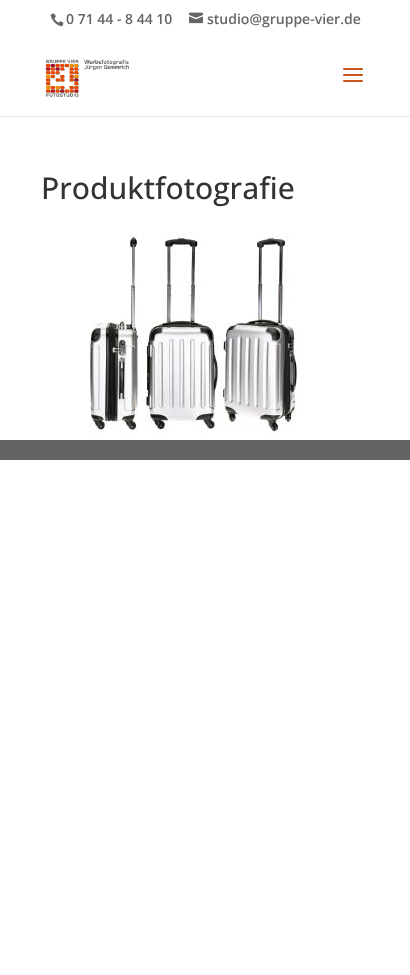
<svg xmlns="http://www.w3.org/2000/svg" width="410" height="975">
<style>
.a{font:600 14px Open Sans;fill:#666}
.b{font:500 30px Open Sans;fill:#333}
</style>
<rect width="100%" height="100%" fill="#fff"/>
<image href="1.png" x="50" y="13" width="14" height="14"/>
<image href="2.png" x="189" y="12" width="14" height="12"/>
<path fill="#e6e6e6" d="M0 116h410v1H0z"/>
<image href="3.png" x="45" y="59" width="84" height="38"/>
<image href="4.png" x="343" y="68" width="20" height="14"/>
<image href="5.png" x="89" y="233" width="208" height="200"/>
<path fill="#636363" d="M0 440h410v20H0z"/>
<text class="a" x="66" y="24">0 71 44 - 8 44 10</text>
<text class="a" x="207" y="24">studio@gruppe-vier.de</text>
<text class="b" x="41" y="199">Produktfotografie</text>
</svg>
